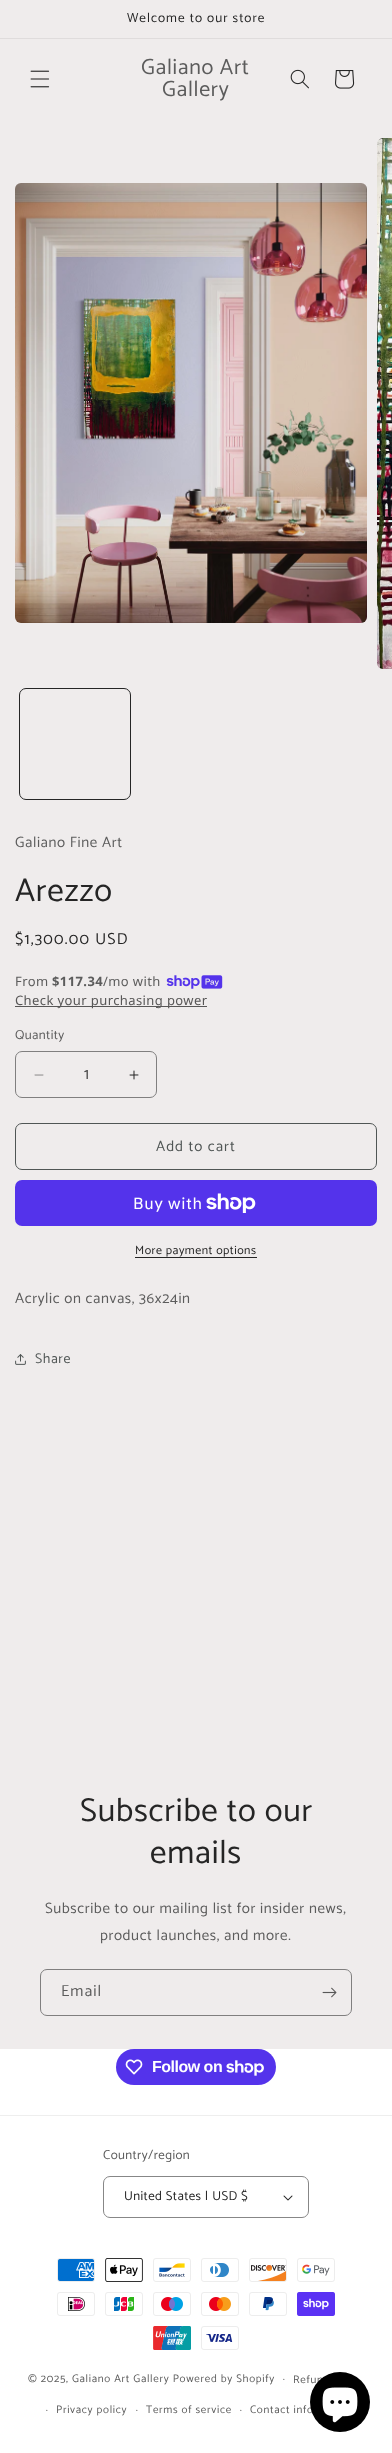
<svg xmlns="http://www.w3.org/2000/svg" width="392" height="2453">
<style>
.a{font:13.25px Catamaran;letter-spacing:1px;fill:#252525}
.b{font:22px Catamaran;letter-spacing:0.7px;fill:#5c5c5c}
.c{font:15px Catamaran;letter-spacing:0.6px;fill:#5c5c5c}
.d{font:33px Catamaran;letter-spacing:0.7px;fill:#252525}
.e{font:16px Catamaran;letter-spacing:1.25px;fill:#252525}
.f{font:13px Noto Sans;letter-spacing:0.4px;fill:#5c5c5c}
.g{font:bold 13px Noto Sans;letter-spacing:0.4px;fill:#5c5c5c}
.h{font:13px Noto Sans;letter-spacing:0.4px;fill:#575656}
.i{font:13px Catamaran;letter-spacing:0.4px;fill:#5c5c5c}
.j{font:16px Catamaran;fill:#434343}
.k{font:15px Catamaran;letter-spacing:1px;fill:#505655}
.l{font:16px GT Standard;letter-spacing:0.6px;fill:#fff}
.m{font:12px Catamaran;letter-spacing:0.5px;fill:#252525}
.n{font:14px Catamaran;letter-spacing:0.6px;fill:#505655}
.o{font:16px Catamaran;letter-spacing:1px;fill:#5c5c5c}
.p{font:bold 16px Liberation Sans;letter-spacing:-0.5px;fill:#fff}
.q{font:13px Catamaran;letter-spacing:0.4px;fill:#252525}
.r{font:11px Catamaran;letter-spacing:0.7px;fill:#5c5c5c}
.s{font:10px Catamaran;letter-spacing:0.7px;fill:#5c5c5c}
</style>
<rect width="100%" height="100%" fill="#efecec"/>
<path fill="#dfdcdc" d="M0 38h392v1H0z"/>
<image href="1.png" x="30" y="70" width="20" height="18"/>
<image href="2.png" x="290" y="69" width="19" height="20"/>
<image href="3.png" x="335" y="70" width="20" height="19"/>
<image href="4.png" x="15" y="183" width="352" height="440"/>
<image href="5.png" x="377" y="138" width="15" height="531"/>
<rect fill="none" stroke="#252525" x="19.5" y="688.5" width="111" height="111" rx="6.5"/>
<image href="6.png" x="166" y="975" width="57" height="14"/>
<path fill="#585757" d="M15 1006h192v1H15z"/>
<image href="7.png" x="34" y="1074" width="10" height="2"/>
<image href="8.png" x="129" y="1070" width="10" height="10"/>
<rect fill="none" stroke="#807f7f" x="15.5" y="1051.5" width="141" height="46" rx="6.5"/>
<rect fill="none" stroke="#505655" x="15.5" y="1123.5" width="361" height="46" rx="6.5"/>
<rect fill="#5433eb" x="15" y="1180" width="362" height="46" rx="7"/>
<image href="9.png" x="206" y="1193" width="50" height="20"/>
<path fill="#252525" d="M135 1257h122v1H135z"/>
<image href="10.png" x="15" y="1354" width="11" height="11"/>
<rect fill="none" stroke="#807f7f" x="40.5" y="1969.5" width="311" height="46" rx="6.5"/>
<image href="11.png" x="322" y="1987" width="15" height="11"/>
<path fill="#fff" d="M0 2049h392v404H0z"/>
<rect fill="#5433eb" x="116" y="2049" width="160" height="36" rx="18"/>
<image href="12.png" x="125" y="2059" width="18" height="16"/>
<image href="13.png" x="226" y="2060" width="38" height="16"/>
<path fill="#eee" d="M0 2115h392v1H0z"/>
<image href="14.png" x="283" y="2195" width="10" height="6"/>
<rect fill="none" stroke="#878787" x="103.5" y="2176.5" width="205" height="41" rx="6.5"/>
<image href="15.png" x="57" y="2258" width="38" height="24"/>
<image href="16.png" x="105" y="2258" width="38" height="24"/>
<image href="17.png" x="153" y="2258" width="38" height="24"/>
<image href="18.png" x="201" y="2258" width="38" height="24"/>
<image href="19.png" x="249" y="2258" width="38" height="24"/>
<image href="20.png" x="297" y="2258" width="38" height="24"/>
<image href="21.png" x="57" y="2292" width="38" height="24"/>
<image href="22.png" x="105" y="2292" width="38" height="24"/>
<image href="23.png" x="153" y="2292" width="38" height="24"/>
<image href="24.png" x="201" y="2292" width="38" height="24"/>
<image href="25.png" x="249" y="2292" width="38" height="24"/>
<image href="26.png" x="297" y="2292" width="38" height="24"/>
<image href="27.png" x="153" y="2326" width="38" height="24"/>
<image href="28.png" x="201" y="2326" width="38" height="24"/>
<text class="a" x="127" y="22">Welcome to our store</text>
<text class="b" x="141" y="74">Galiano Art</text>
<text class="b" x="162" y="96">Gallery</text>
<text class="c" x="15" y="847">Galiano Fine Art</text>
<text class="d" x="15" y="901">Arezzo</text>
<text class="e" x="15" y="944">$1,300.00 USD</text>
<text class="f" x="15" y="986">From</text>
<text class="g" x="52" y="986">$117.34</text>
<text class="f" x="103" y="986">/mo with</text>
<text class="h" x="15" y="1005">Check your purchasing power</text>
<text class="i" x="15" y="1039">Quantity</text>
<text class="j" x="84" y="1079">1</text>
<text class="k" x="156" y="1151">Add to cart</text>
<text class="l" x="133" y="1209">Buy with</text>
<text class="m" x="135" y="1254">More payment options</text>
<text class="c" x="15" y="1303">Acrylic on canvas, 36x24in</text>
<text class="n" x="35" y="1363">Share</text>
<text class="d" x="80" y="1821">Subscribe to our</text>
<text class="d" x="150" y="1863">emails</text>
<text class="c" x="45" y="1913">Subscribe to our mailing list for insider news,</text>
<text class="c" x="100" y="1940">product launches, and more.</text>
<text class="o" x="61" y="1996">Email</text>
<text class="p" x="152" y="2072">Follow on</text>
<text class="i" x="103" y="2159">Country/region</text>
<text class="q" x="124" y="2200">United States | USD $</text>
<text class="r" x="28" y="2382">© 2025, Galiano Art Gallery Powered by Shopify</text>
<text class="s" x="283" y="2382">·</text>
<text class="r" x="293" y="2383">Refun</text>
<text class="s" x="46" y="2413">·</text>
<text class="r" x="56" y="2413">Privacy policy</text>
<text class="s" x="136" y="2413">·</text>
<text class="r" x="146" y="2413">Terms of service</text>
<text class="s" x="240" y="2413">·</text>
<text class="r" x="250" y="2413">Contact info</text>
<circle fill="#000" cx="340" cy="2402" r="30"/>
<image href="29.png" x="322" y="2387" width="36" height="36"/>
</svg>
